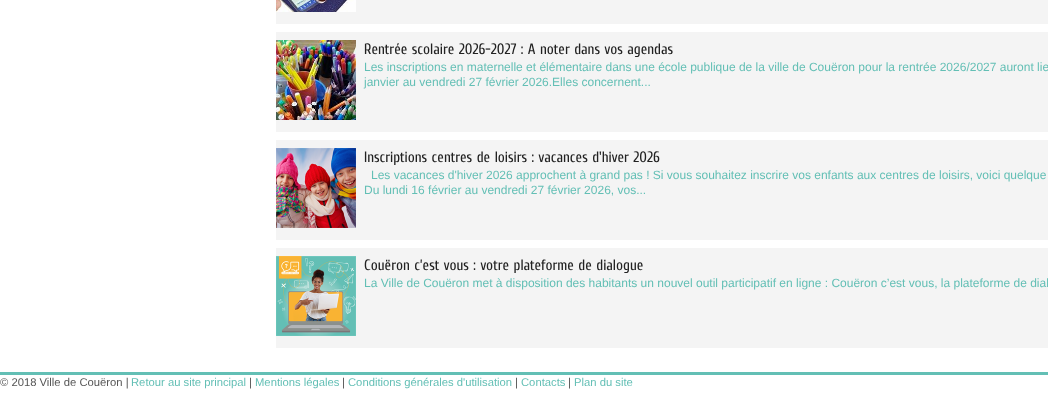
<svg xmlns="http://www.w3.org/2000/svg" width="1048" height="401">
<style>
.a{font:15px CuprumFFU;fill:#222}
.b{font:12px Liberation Sans;fill:#63bfb5}
.c{font:11.25px Liberation Sans;fill:#555}
.d{font:11.25px Liberation Sans;fill:#63bfb5}
</style>
<rect width="100%" height="100%" fill="#fff"/>
<path fill="#f4f4f4" d="M276 0h772v24H276z"/>
<image href="1.png" x="276" y="0" width="80" height="12"/>
<path fill="#f4f4f4" d="M276 32h772v100H276z"/>
<image href="2.png" x="276" y="40" width="80" height="80"/>
<path fill="#f4f4f4" d="M276 140h772v100H276z"/>
<image href="3.png" x="276" y="148" width="80" height="80"/>
<path fill="#f4f4f4" d="M276 248h772v100H276z"/>
<image href="4.png" x="276" y="256" width="80" height="80"/>
<path fill="#63bfb5" d="M0 372h1048v3H0z"/>
<text class="a" x="364" y="54">Rentrée scolaire 2026-2027 : A noter dans vos agendas</text>
<text class="b" x="364" y="71">Les inscriptions en maternelle et élémentaire dans une école publique de la ville de Couëron pour la rentrée 2026/2027 auront lie</text>
<text class="b" x="364" y="86">janvier au vendredi 27 février 2026.Elles concernent...</text>
<text class="a" x="364" y="162">Inscriptions centres de loisirs : vacances d'hiver 2026</text>
<text class="b" x="371" y="179">Les vacances d'hiver 2026 approchent à grand pas ! Si vous souhaitez inscrire vos enfants aux centres de loisirs, voici quelque</text>
<text class="b" x="364" y="194">Du lundi 16 février au vendredi 27 février 2026, vos...</text>
<text class="a" x="364" y="270">Couëron c’est vous : votre plateforme de dialogue</text>
<text class="b" x="364" y="287">La Ville de Couëron met à disposition des habitants un nouvel outil participatif en ligne : Couëron c’est vous, la plateforme de dial</text>
<text class="c" x="0" y="386">© 2018 Ville de Couëron |</text>
<text class="d" x="131" y="386">Retour au site principal</text>
<text class="c" x="249" y="386">|</text>
<text class="d" x="255" y="386">Mentions légales</text>
<text class="c" x="342" y="386">|</text>
<text class="d" x="348" y="386">Conditions générales d'utilisation</text>
<text class="c" x="515" y="386">|</text>
<text class="d" x="521" y="386">Contacts</text>
<text class="c" x="568" y="386">|</text>
<text class="d" x="574" y="386">Plan du site</text>
</svg>
